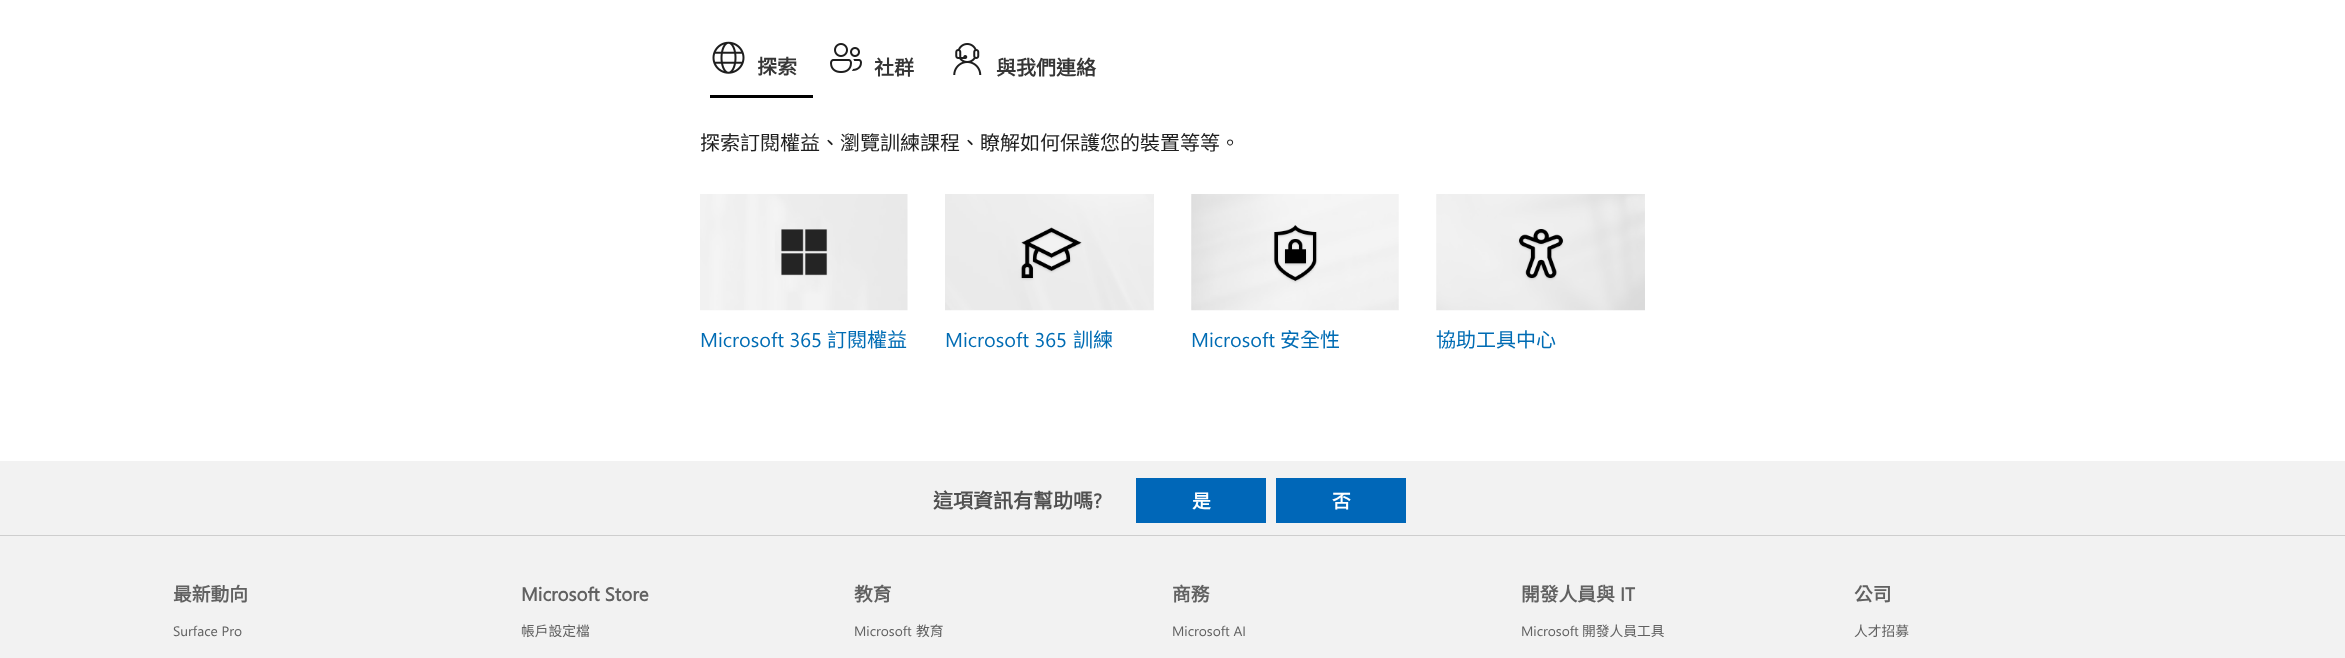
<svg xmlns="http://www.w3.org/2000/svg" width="2345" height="658">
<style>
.a{font:bold 20px Noto Sans CJK TC;fill:#363636}
.b{font:20px Noto Sans CJK TC;fill:#1e1e1e}
.c{font:20px Segoe UI;fill:#006cb4}
.d{font:20px Noto Sans CJK TC;fill:#006cb4}
.e{font:bold 20px Noto Sans CJK TC;fill:#505050}
.f{font:bold 20px Segoe UI;fill:#505050}
.g{font:bold 18.75px Noto Sans CJK TC;fill:#fff}
.h{font:bold 18.75px Noto Sans CJK TC;fill:#616161}
.i{font:13.75px Segoe UI;fill:#616161}
.j{font:bold 18.75px Segoe UI;fill:#616161}
.k{font:13.75px Noto Sans CJK TC;fill:#616161}
</style>
<rect width="100%" height="100%" fill="#fff"/>
<path fill="#000" d="M710 95h103v3H710z"/>
<image href="1.png" x="712" y="41" width="33" height="33"/>
<image href="2.png" x="830" y="43" width="32" height="30"/>
<image href="3.png" x="953" y="43" width="29" height="32"/>
<image href="4.png" x="700" y="194" width="208" height="117"/>
<image href="5.png" x="945" y="194" width="209" height="117"/>
<image href="6.png" x="1191" y="194" width="208" height="117"/>
<image href="7.png" x="1436" y="194" width="209" height="117"/>
<path fill="#f2f2f2" d="M0 461h2345v74H0z"/>
<path fill="#cecece" d="M0 535h2345v1H0z"/>
<path fill="#0067b8" d="M1136 478h130v45H1136z"/>
<path fill="#0067b8" d="M1276 478h130v45H1276z"/>
<path fill="#f2f2f2" d="M0 536h2345v122H0z"/>
<text class="a" x="757" y="74">探索</text>
<text class="a" x="874" y="75">社群</text>
<text class="a" x="996" y="75">與我們連絡</text>
<text class="b" x="700" y="150">探索訂閱權益、瀏覽訓練課程、瞭解如何保護您的裝置等等。</text>
<text class="c" x="700" y="347">Microsoft 365</text>
<text class="d" x="827" y="347">訂閱權益</text>
<text class="c" x="945" y="347">Microsoft 365</text>
<text class="d" x="1073" y="347">訓練</text>
<text class="c" x="1191" y="347">Microsoft</text>
<text class="d" x="1280" y="347">安全性</text>
<text class="d" x="1436" y="347">協助工具中心</text>
<text class="e" x="933" y="508">這項資訊有幫助嗎</text>
<text class="f" x="1093" y="508">?</text>
<text class="g" x="1192" y="508">是</text>
<text class="g" x="1332" y="508">否</text>
<text class="h" x="173" y="601">最新動向</text>
<text class="i" x="173" y="636">Surface Pro</text>
<text class="j" x="521" y="601">Microsoft Store</text>
<text class="k" x="521" y="636">帳戶設定檔</text>
<text class="h" x="854" y="601">教育</text>
<text class="i" x="854" y="636">Microsoft</text>
<text class="k" x="916" y="636">教育</text>
<text class="h" x="1172" y="601">商務</text>
<text class="i" x="1172" y="636">Microsoft AI</text>
<text class="h" x="1521" y="601">開發人員與</text>
<text class="j" x="1620" y="601">IT</text>
<text class="i" x="1521" y="636">Microsoft</text>
<text class="k" x="1582" y="636">開發人員工具</text>
<text class="h" x="1854" y="601">公司</text>
<text class="k" x="1854" y="636">人才招募</text>
</svg>
